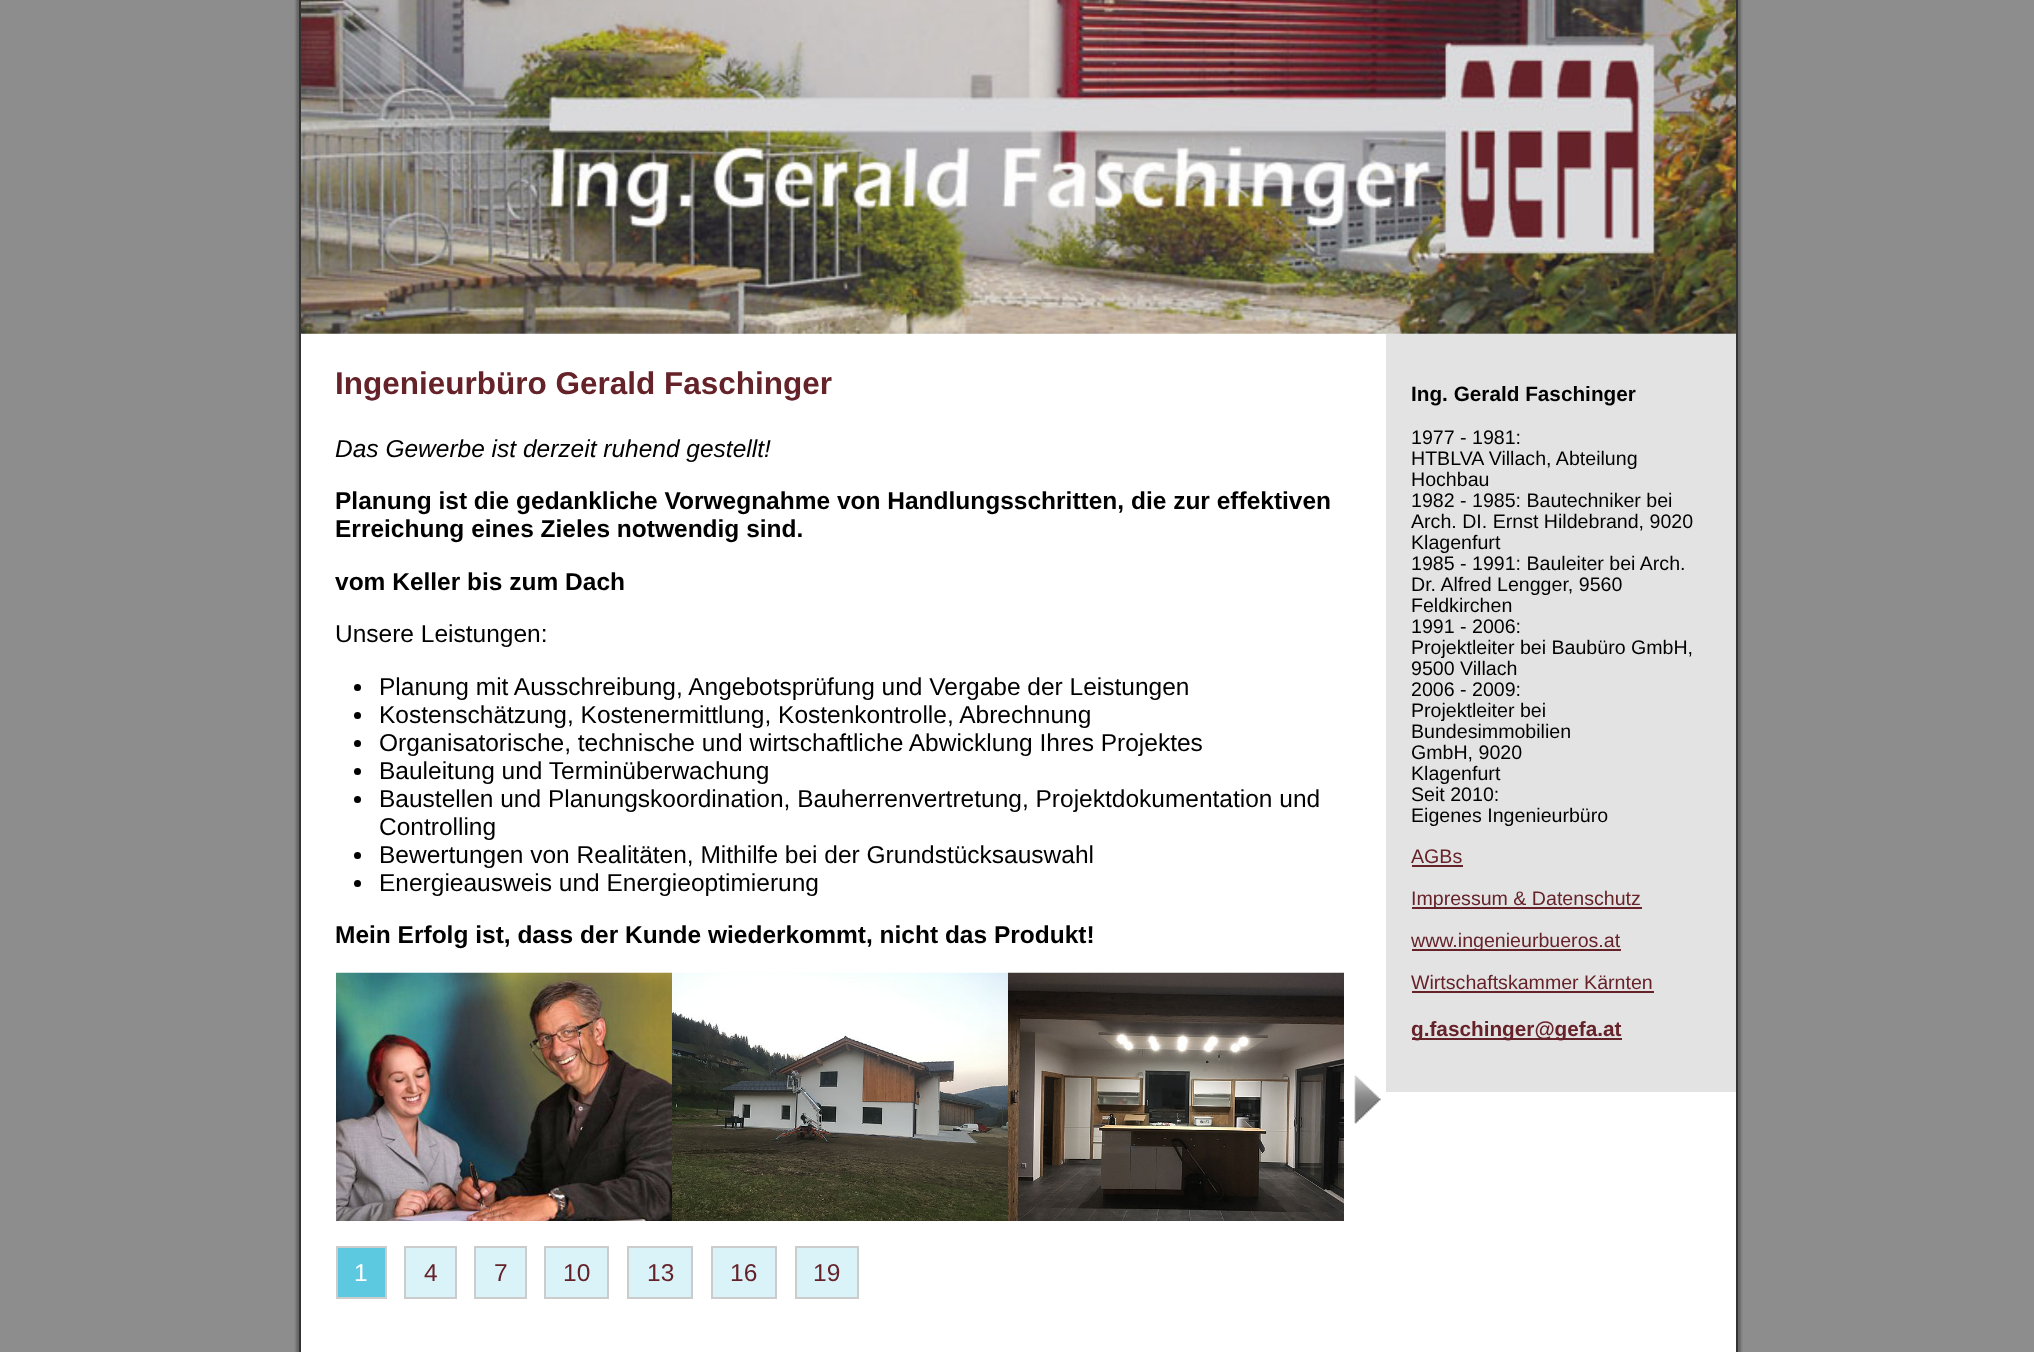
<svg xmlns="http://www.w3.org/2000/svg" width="2034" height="1352">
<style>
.a{font:bold 31.5px Liberation Sans;fill:#652229}
.b{font:italic 24.5px Liberation Sans;fill:#000}
.c{font:bold 24.5px Liberation Sans;fill:#000}
.d{font:24.5px Liberation Sans;fill:#000}
.e{font:24.5px Liberation Sans;fill:#fff}
.f{font:24.5px Liberation Sans;fill:#652229}
.g{font:bold 20.75px Liberation Sans;fill:#000}
.h{font:19.6px Liberation Sans;fill:#000}
.i{font:19.6px Liberation Sans;fill:#652229}
.j{font:bold 20.75px Liberation Sans;fill:#652229}
</style>
<rect width="100%" height="100%" fill="#8e8d8d"/>
<path fill="#666" filter="blur(1px)" d="M296 -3h1445v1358H296z"/>
<path fill="#fff" d="M301 333h1435v1019H301z"/>
<path fill="none" stroke="#333" stroke-width="2" d="M300 -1h1437v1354H300z"/>
<image href="1.png" x="301" y="0" width="1435" height="334"/>
<circle fill="#000" cx="357.5" cy="687.5" r="3.5"/>
<circle fill="#000" cx="357.5" cy="715.5" r="3.5"/>
<circle fill="#000" cx="357.5" cy="743.5" r="3.5"/>
<circle fill="#000" cx="357.5" cy="771.5" r="3.5"/>
<circle fill="#000" cx="357.5" cy="799.5" r="3.5"/>
<circle fill="#000" cx="357.5" cy="855.5" r="3.5"/>
<circle fill="#000" cx="357.5" cy="883.5" r="3.5"/>
<image href="2.png" x="336" y="972" width="336" height="249"/>
<image href="3.png" x="672" y="972" width="336" height="249"/>
<image href="4.png" x="1008" y="972" width="336" height="249"/>
<image href="5.png" x="1354" y="1075" width="27" height="49"/>
<path fill="#5dc9e1" stroke="#ccc" stroke-width="2" d="M337 1247h49v51H337z"/>
<path fill="#daf3f8" stroke="#ccc" stroke-width="2" d="M405 1247h51v51H405z"/>
<path fill="#daf3f8" stroke="#ccc" stroke-width="2" d="M475 1247h51v51H475z"/>
<path fill="#daf3f8" stroke="#ccc" stroke-width="2" d="M545 1247h63v51H545z"/>
<path fill="#daf3f8" stroke="#ccc" stroke-width="2" d="M628 1247h64v51H628z"/>
<path fill="#daf3f8" stroke="#ccc" stroke-width="2" d="M712 1247h64v51H712z"/>
<path fill="#daf3f8" stroke="#ccc" stroke-width="2" d="M796 1247h62v51H796z"/>
<path fill="#e3e3e3" d="M1386 334h350v758H1386z"/>
<path fill="#652229" d="M1412 865h51v2H1412z"/>
<path fill="#652229" d="M1412 907h230v2H1412z"/>
<path fill="#652229" d="M1412 949h209v2H1412z"/>
<path fill="#652229" d="M1412 991h242v2H1412z"/>
<path fill="#652229" d="M1412 1038h210v2H1412z"/>
<text class="a" x="335" y="394">Ingenieurbüro Gerald Faschinger</text>
<text class="b" x="335" y="457">Das Gewerbe ist derzeit ruhend gestellt!</text>
<text class="c" x="335" y="509">Planung ist die gedankliche Vorwegnahme von Handlungsschritten, die zur effektiven</text>
<text class="c" x="335" y="537">Erreichung eines Zieles notwendig sind.</text>
<text class="c" x="335" y="590">vom Keller bis zum Dach</text>
<text class="d" x="335" y="642">Unsere Leistungen:</text>
<text class="d" x="379" y="695">Planung mit Ausschreibung, Angebotsprüfung und Vergabe der Leistungen</text>
<text class="d" x="379" y="723">Kostenschätzung, Kostenermittlung, Kostenkontrolle, Abrechnung</text>
<text class="d" x="379" y="751">Organisatorische, technische und wirtschaftliche Abwicklung Ihres Projektes</text>
<text class="d" x="379" y="779">Bauleitung und Terminüberwachung</text>
<text class="d" x="379" y="807">Baustellen und Planungskoordination, Bauherrenvertretung, Projektdokumentation und</text>
<text class="d" x="379" y="835">Controlling</text>
<text class="d" x="379" y="863">Bewertungen von Realitäten, Mithilfe bei der Grundstücksauswahl</text>
<text class="d" x="379" y="891">Energieausweis und Energieoptimierung</text>
<text class="c" x="335" y="943">Mein Erfolg ist, dass der Kunde wiederkommt, nicht das Produkt!</text>
<text class="e" x="354" y="1281">1</text>
<text class="f" x="424" y="1281">4</text>
<text class="f" x="494" y="1281">7</text>
<text class="f" x="563" y="1281">10</text>
<text class="f" x="647" y="1281">13</text>
<text class="f" x="730" y="1281">16</text>
<text class="f" x="813" y="1281">19</text>
<text class="g" x="1411" y="401">Ing. Gerald Faschinger</text>
<text class="h" x="1411" y="444">1977 - 1981:</text>
<text class="h" x="1411" y="465">HTBLVA Villach, Abteilung</text>
<text class="h" x="1411" y="486">Hochbau</text>
<text class="h" x="1411" y="507">1982 - 1985: Bautechniker bei</text>
<text class="h" x="1411" y="528">Arch. DI. Ernst Hildebrand, 9020</text>
<text class="h" x="1411" y="549">Klagenfurt</text>
<text class="h" x="1411" y="570">1985 - 1991: Bauleiter bei Arch.</text>
<text class="h" x="1411" y="591">Dr. Alfred Lengger, 9560</text>
<text class="h" x="1411" y="612">Feldkirchen</text>
<text class="h" x="1411" y="633">1991 - 2006:</text>
<text class="h" x="1411" y="654">Projektleiter bei Baubüro GmbH,</text>
<text class="h" x="1411" y="675">9500 Villach</text>
<text class="h" x="1411" y="696">2006 - 2009:</text>
<text class="h" x="1411" y="717">Projektleiter bei</text>
<text class="h" x="1411" y="738">Bundesimmobilien</text>
<text class="h" x="1411" y="759">GmbH, 9020</text>
<text class="h" x="1411" y="780">Klagenfurt</text>
<text class="h" x="1411" y="801">Seit 2010:</text>
<text class="h" x="1411" y="822">Eigenes Ingenieurbüro</text>
<text class="i" x="1411" y="863">AGBs</text>
<text class="i" x="1411" y="905">Impressum &amp; Datenschutz</text>
<text class="i" x="1411" y="947">www.ingenieurbueros.at</text>
<text class="i" x="1411" y="989">Wirtschaftskammer Kärnten</text>
<text class="j" x="1411" y="1036">g.faschinger@gefa.at</text>
</svg>
